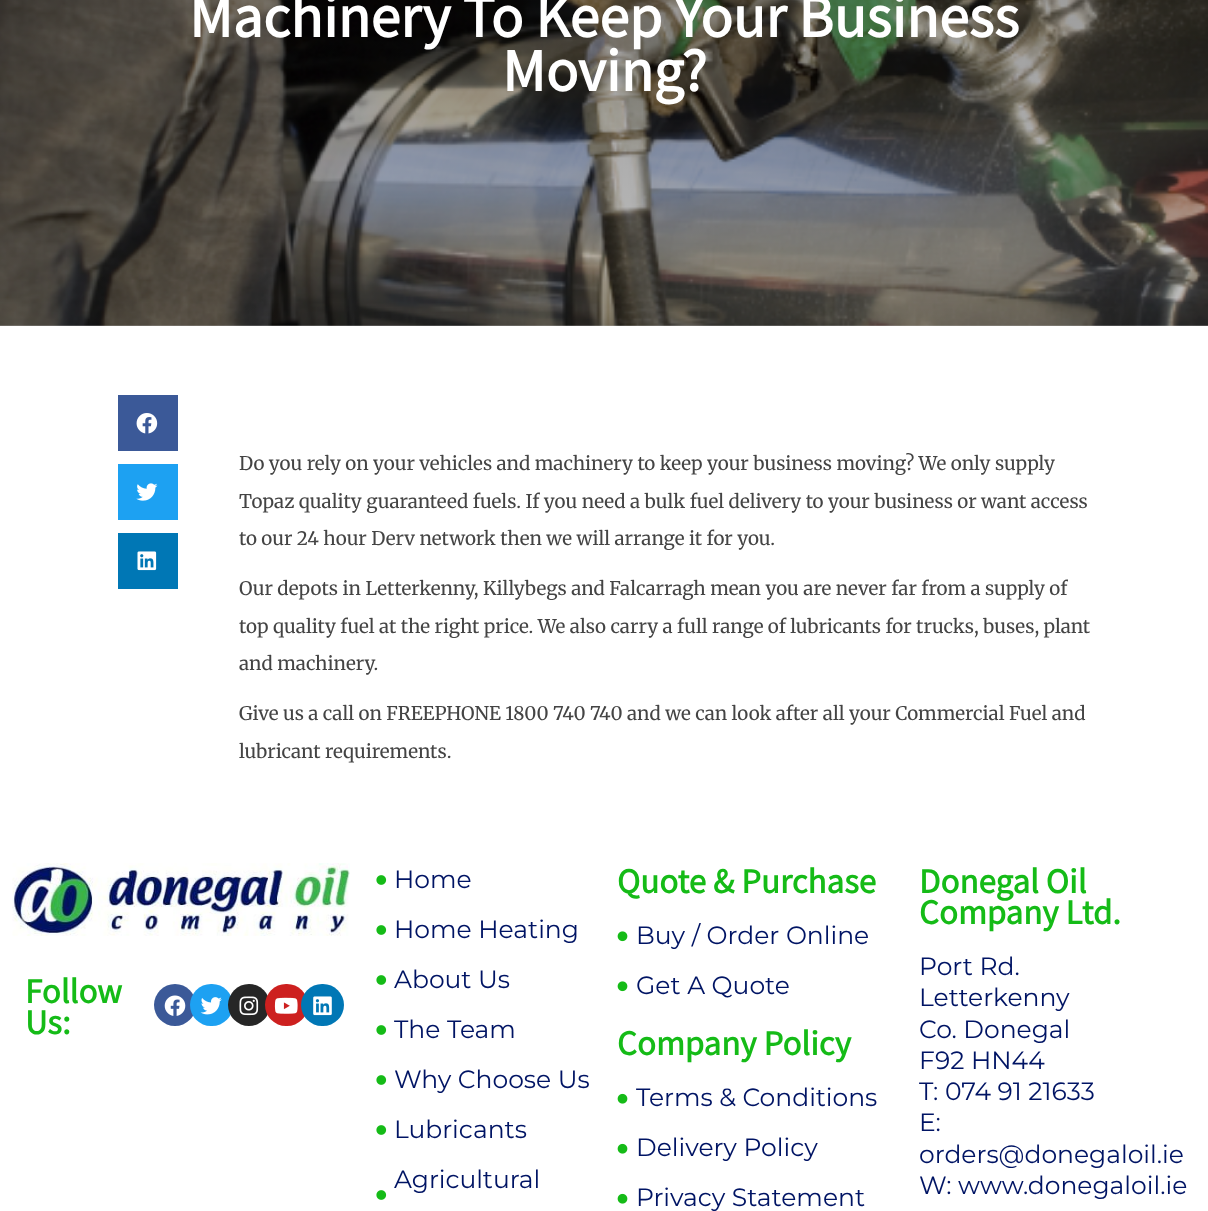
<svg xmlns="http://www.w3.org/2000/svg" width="1208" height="1211">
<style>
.a{font:bold 53.75px Noto Sans JP;fill:#fff}
.b{font:18.75px Merriweather;fill:#444}
.c{font:bold 31.25px Noto Sans JP;fill:#15bb17}
.d{font:25px Montserrat;fill:#001464}
</style>
<defs>
<linearGradient id="g1" gradientUnits="userSpaceOnUse" x1="604" y1="-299" x2="604" y2="326"><stop offset="0" stop-color="#000" stop-opacity="0.5"/><stop offset="1" stop-color="#000" stop-opacity="0.25"/></linearGradient>
</defs>
<rect width="100%" height="100%" fill="#fff"/>
<image href="1.png" x="0" y="0" width="1208" height="326"/>
<path fill="url(#g1)" d="M0 0h1208v326H0z"/>
<path fill="#3b5998" d="M118 395h60v56H118z"/>
<image href="2.png" x="136" y="413" width="22" height="21"/>
<path fill="#1da1f2" d="M118 464h60v56H118z"/>
<image href="3.png" x="136" y="483" width="22" height="18"/>
<path fill="#0077b5" d="M118 533h60v56H118z"/>
<image href="4.png" x="137" y="551" width="20" height="20"/>
<image href="5.png" x="12" y="863" width="338" height="73"/>
<circle fill="#3b5998" cx="175" cy="1005" r="21"/>
<image href="6.png" x="164" y="995" width="22" height="21"/>
<rect fill="#1da1f2" x="190" y="984" width="43" height="42" rx="21"/>
<image href="7.png" x="200" y="997" width="22" height="18"/>
<circle fill="#262626" cx="249" cy="1005" r="21"/>
<image href="8.png" x="239" y="996" width="20" height="20"/>
<rect fill="#cd201f" x="265" y="984" width="43" height="42" rx="21"/>
<image href="9.png" x="274" y="997" width="24" height="17"/>
<rect fill="#0077b5" x="301" y="984" width="43" height="42" rx="21"/>
<image href="10.png" x="313" y="996" width="19" height="20"/>
<image href="11.png" x="376" y="875" width="11" height="10"/>
<image href="11.png" x="376" y="925" width="11" height="10"/>
<image href="11.png" x="376" y="975" width="11" height="10"/>
<image href="11.png" x="376" y="1025" width="11" height="10"/>
<image href="11.png" x="376" y="1075" width="11" height="10"/>
<image href="11.png" x="376" y="1125" width="11" height="10"/>
<image href="11.png" x="376" y="1190" width="11" height="10"/>
<image href="12.png" x="617" y="931" width="11" height="11"/>
<image href="12.png" x="617" y="981" width="11" height="11"/>
<image href="13.png" x="617" y="1093" width="11" height="11"/>
<image href="13.png" x="617" y="1143" width="11" height="11"/>
<image href="13.png" x="617" y="1193" width="11" height="11"/>
<text class="a" x="189" y="37">Machinery To Keep Your Business</text>
<text class="a" x="502" y="91">Moving?</text>
<text class="b" x="239" y="470">Do you rely on your vehicles and machinery to keep your business moving? We only supply</text>
<text class="b" x="239" y="508">Topaz quality guaranteed fuels. If you need a bulk fuel delivery to your business or want access</text>
<text class="b" x="239" y="545">to our 24 hour Derv network then we will arrange it for you.</text>
<text class="b" x="239" y="595">Our depots in Letterkenny, Killybegs and Falcarragh mean you are never far from a supply of</text>
<text class="b" x="239" y="633">top quality fuel at the right price. We also carry a full range of lubricants for trucks, buses, plant</text>
<text class="b" x="239" y="670">and machinery.</text>
<text class="b" x="239" y="720">Give us a call on FREEPHONE 1800 740 740 and we can look after all your Commercial Fuel and</text>
<text class="b" x="239" y="758">lubricant requirements.</text>
<text class="c" x="25" y="1003">Follow</text>
<text class="c" x="25" y="1034">Us:</text>
<text class="d" x="394" y="888">Home</text>
<text class="d" x="394" y="938">Home Heating</text>
<text class="d" x="394" y="988">About Us</text>
<text class="d" x="394" y="1038">The Team</text>
<text class="d" x="394" y="1088">Why Choose Us</text>
<text class="d" x="394" y="1138">Lubricants</text>
<text class="d" x="394" y="1188">Agricultural</text>
<text class="c" x="617" y="893">Quote &amp; Purchase</text>
<text class="d" x="636" y="944">Buy / Order Online</text>
<text class="d" x="636" y="994">Get A Quote</text>
<text class="c" x="617" y="1055">Company Policy</text>
<text class="d" x="636" y="1106">Terms &amp; Conditions</text>
<text class="d" x="636" y="1156">Delivery Policy</text>
<text class="d" x="636" y="1206">Privacy Statement</text>
<text class="c" x="919" y="893">Donegal Oil</text>
<text class="c" x="919" y="924">Company Ltd.</text>
<text class="d" x="919" y="975">Port Rd.</text>
<text class="d" x="919" y="1006">Letterkenny</text>
<text class="d" x="919" y="1038">Co. Donegal</text>
<text class="d" x="919" y="1069">F92 HN44</text>
<text class="d" x="919" y="1100">T: 074 91 21633</text>
<text class="d" x="919" y="1131">E:</text>
<text class="d" x="919" y="1163">orders@donegaloil.ie</text>
<text class="d" x="919" y="1194">W: www.donegaloil.ie</text>
</svg>
